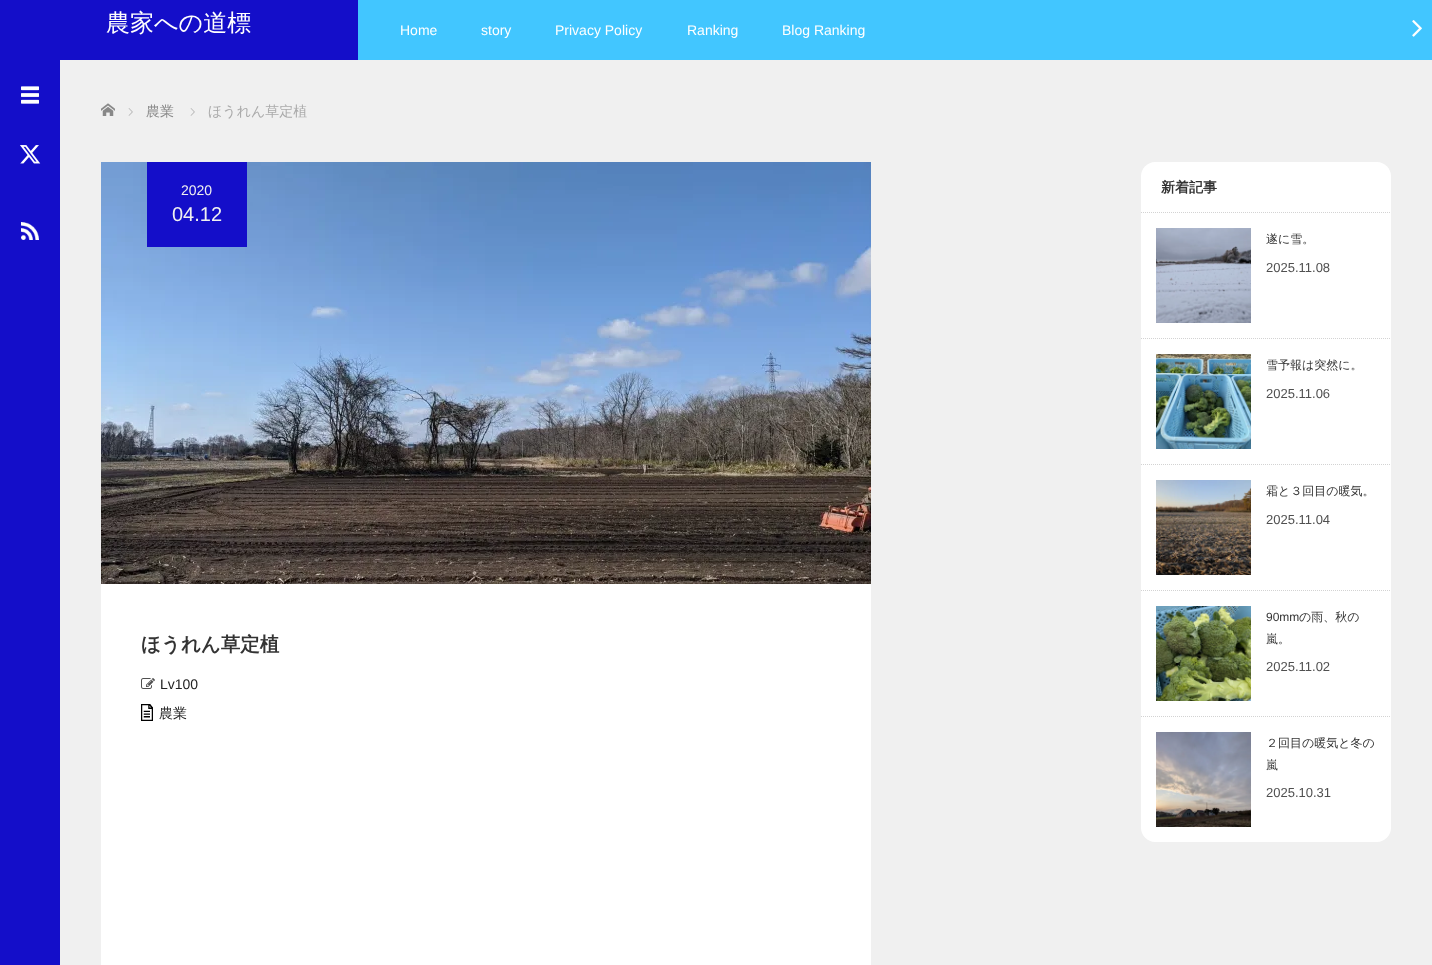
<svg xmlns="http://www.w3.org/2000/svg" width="1432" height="965">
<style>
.a{font:500 24px WenQuanYi Zen Hei;fill:#fff}
.b{font:14px Liberation Sans;fill:#fff}
.c{font:500 14px WenQuanYi Zen Hei;fill:#888}
.d{font:500 14px WenQuanYi Zen Hei;fill:#aaa}
.e{font:14px Liberation Sans;fill:#f0f0f0}
.f{font:20px Liberation Sans;fill:#f0f0f0}
.g{font:bold 19.5px WenQuanYi Zen Hei;fill:#333}
.h{font:14px Liberation Sans;fill:#222}
.i{font:500 14px WenQuanYi Zen Hei;fill:#222}
.j{font:bold 14px WenQuanYi Zen Hei;fill:#333}
.k{font:500 12px WenQuanYi Zen Hei;fill:#333}
.l{font:13px Liberation Sans;fill:#505050}
.m{font:12px Liberation Sans;fill:#333}
</style>
<rect width="100%" height="100%" fill="#f0f0f0"/>
<path fill="#140ec9" d="M0 0h358v60H0z"/>
<path fill="#42c6ff" d="M358 0h1074v60H358z"/>
<image href="1.png" x="1412" y="20" width="10" height="17"/>
<path fill="#140ec9" d="M0 60h60v905H0z"/>
<image href="2.png" x="21" y="86" width="18" height="18"/>
<image href="3.png" x="20" y="145" width="21" height="19"/>
<image href="4.png" x="21" y="222" width="18" height="18"/>
<image href="5.png" x="101" y="103" width="14" height="13"/>
<image href="6.png" x="128" y="108" width="5" height="8"/>
<image href="6.png" x="190" y="108" width="5" height="8"/>
<path fill="#fff" d="M101 584h770v381H101z"/>
<image href="7.png" x="101" y="162" width="770" height="422"/>
<path fill="#140ec9" d="M147 162h100v85H147z"/>
<image href="8.png" x="141" y="678" width="14" height="11"/>
<image href="9.png" x="141" y="704" width="12" height="17"/>
<path fill="#fff" d="M1155 162h222c7.5 0 14 6.5 14 14v37h-250v-37c0-7.5 6.5-14 14-14z"/>
<path fill="none" stroke="#d3d3d3" stroke-dasharray="1 1" d="M1141 212.5h250"/>
<path fill="#fff" d="M1141 213h250v615c0 7.5-6.5 14-14 14h-222c-7.5 0-14-6.5-14-14z"/>
<path fill="none" stroke="#d3d3d3" stroke-dasharray="1 1" d="M1141 338.5h250"/>
<image href="10.png" x="1156" y="228" width="95" height="95"/>
<path fill="none" stroke="#d3d3d3" stroke-dasharray="1 1" d="M1141 464.5h250"/>
<image href="11.png" x="1156" y="354" width="95" height="95"/>
<path fill="none" stroke="#d3d3d3" stroke-dasharray="1 1" d="M1141 590.5h250"/>
<image href="12.png" x="1156" y="480" width="95" height="95"/>
<path fill="none" stroke="#d3d3d3" stroke-dasharray="1 1" d="M1141 716.5h250"/>
<image href="13.png" x="1156" y="606" width="95" height="95"/>
<image href="14.png" x="1156" y="732" width="95" height="95"/>
<text class="a" x="106" y="31">農家への道標</text>
<text class="b" x="400" y="35">Home</text>
<text class="b" x="481" y="35">story</text>
<text class="b" x="555" y="35">Privacy Policy</text>
<text class="b" x="687" y="35">Ranking</text>
<text class="b" x="782" y="35">Blog Ranking</text>
<text class="c" x="146" y="116">農業</text>
<text class="d" x="208" y="116">ほうれん草定植</text>
<text class="e" x="181" y="195">2020</text>
<text class="f" x="172" y="221">04.12</text>
<text class="g" x="141" y="651">ほうれん草定植</text>
<text class="h" x="160" y="689">Lv100</text>
<text class="i" x="159" y="718">農業</text>
<text class="j" x="1161" y="192">新着記事</text>
<text class="k" x="1266" y="243">遂に雪。</text>
<text class="l" x="1266" y="272">2025.11.08</text>
<text class="k" x="1266" y="369">雪予報は突然に。</text>
<text class="l" x="1266" y="398">2025.11.06</text>
<text class="k" x="1266" y="495">霜と３回目の暖気。</text>
<text class="l" x="1266" y="524">2025.11.04</text>
<text class="m" x="1266" y="621">90mm</text>
<text class="k" x="1299" y="621">の雨、秋の</text>
<text class="k" x="1266" y="643">嵐。</text>
<text class="l" x="1266" y="671">2025.11.02</text>
<text class="k" x="1266" y="747">２回目の暖気と冬の</text>
<text class="k" x="1266" y="769">嵐</text>
<text class="l" x="1266" y="797">2025.10.31</text>
</svg>
